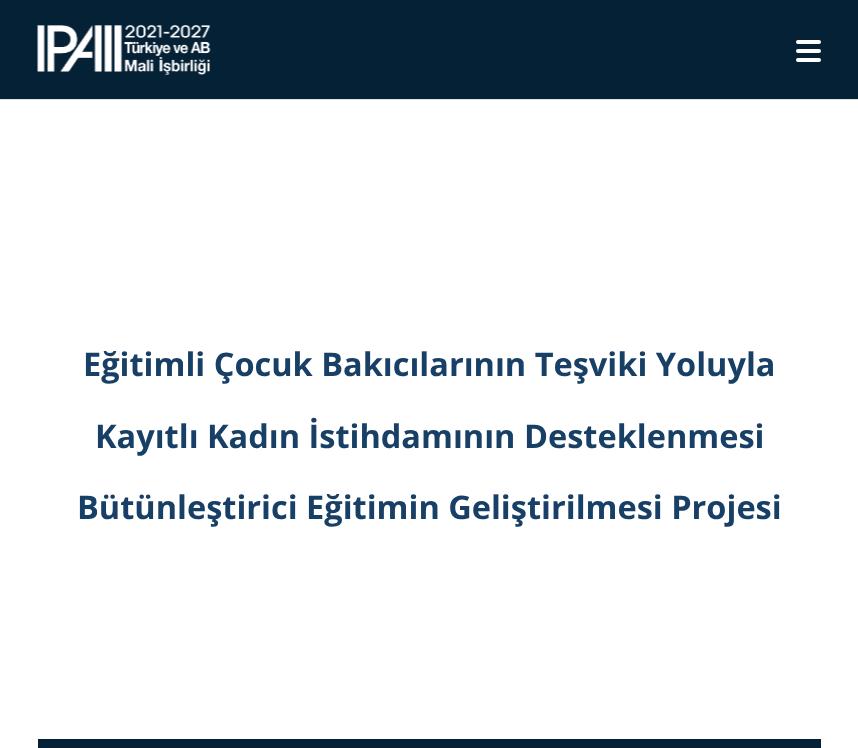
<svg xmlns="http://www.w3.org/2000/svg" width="858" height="748">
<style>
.a{font:bold 32.5px Open Sans;fill:#183f65}
</style>
<rect width="100%" height="100%" fill="#fff"/>
<path fill="#052135" d="M0 0h858v99H0z"/>
<path fill="#e1e1e1" d="M0 99h858v1H0z"/>
<image href="1.png" x="37" y="25" width="174" height="50"/>
<rect fill="#fff" x="796" y="40" width="25" height="4" rx="2"/>
<rect fill="#fff" x="796" y="49" width="25" height="4" rx="2"/>
<rect fill="#fff" x="796" y="58" width="25" height="4" rx="2"/>
<path fill="#062135" d="M38 739h783v9H38z"/>
<text class="a" x="83" y="376">Eğitimli Çocuk Bakıcılarının Teşviki Yoluyla</text>
<text class="a" x="95" y="448">Kayıtlı Kadın İstihdamının Desteklenmesi</text>
<text class="a" x="77" y="519">Bütünleştirici Eğitimin Geliştirilmesi Projesi</text>
</svg>
